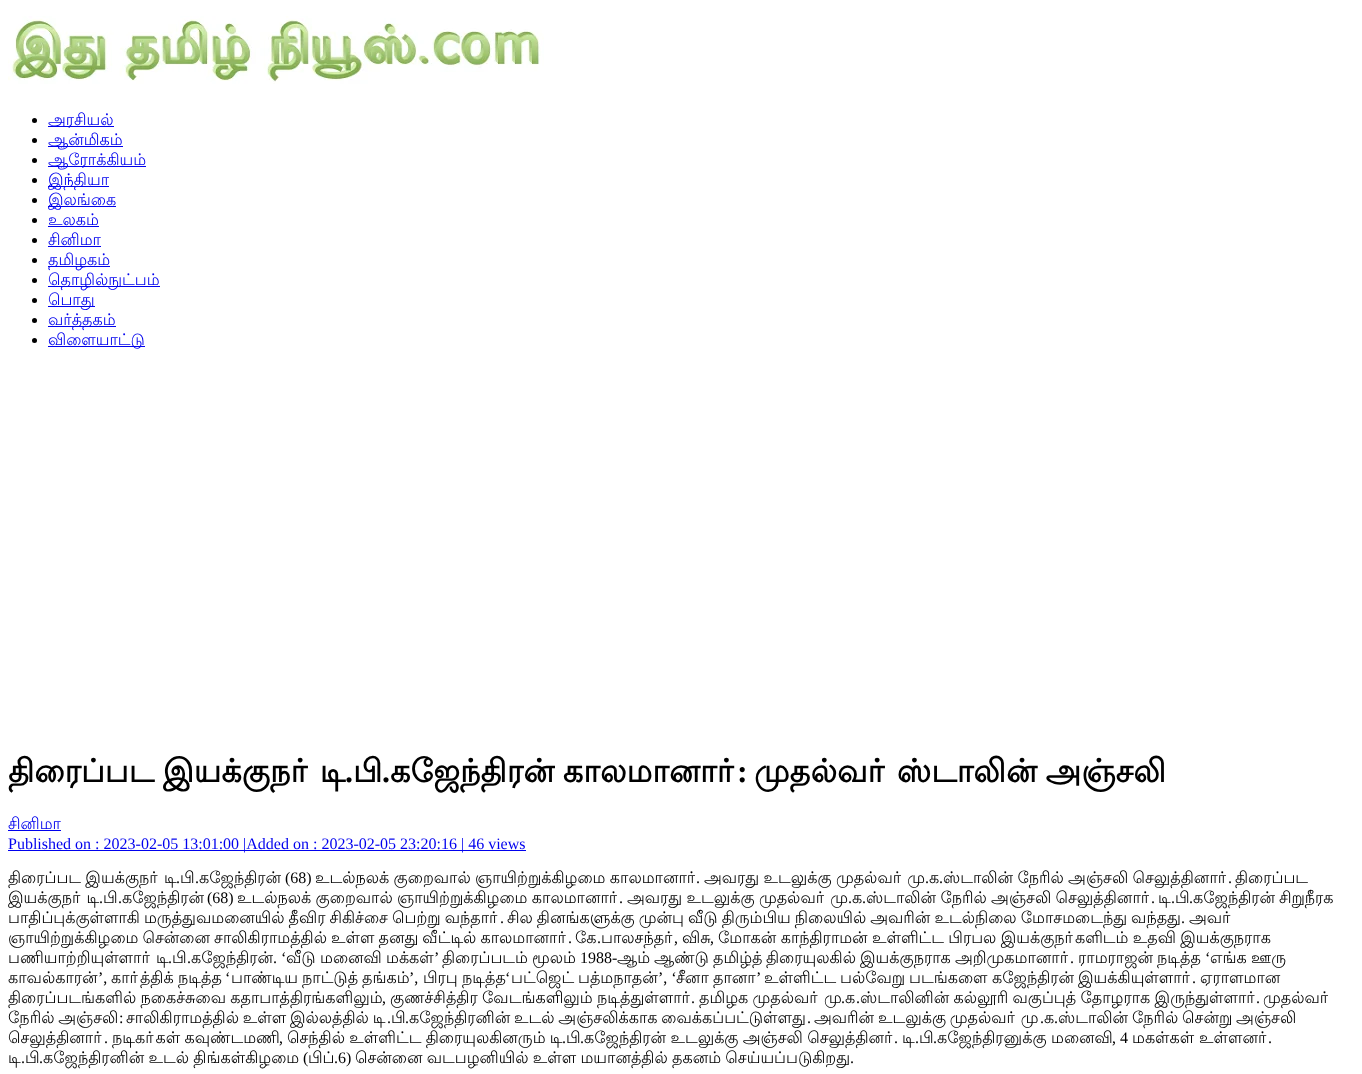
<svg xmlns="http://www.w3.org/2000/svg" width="1362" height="1074">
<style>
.a{font:16px Lohit Tamil;fill:#00e}
.b{font:bold 32px Lohit Tamil;fill:#000}
.c{font:bold 32px Liberation Serif;fill:#000}
.d{font:16px Liberation Serif;fill:#00e}
.e{font:16px Lohit Tamil;fill:#000}
.f{font:16px Liberation Serif;fill:#000}
</style>
<rect width="100%" height="100%" fill="#fff"/>
<image href="1.png" x="8" y="16" width="536" height="68"/>
<circle fill="#000" cx="34.5" cy="120.5" r="2.5"/>
<path fill="#00e" d="M48 126h66v1H48z"/>
<circle fill="#000" cx="34.5" cy="140.5" r="2.5"/>
<path fill="#00e" d="M48 146h75v1H48z"/>
<circle fill="#000" cx="34.5" cy="160.5" r="2.5"/>
<path fill="#00e" d="M48 166h98v1H48z"/>
<circle fill="#000" cx="34.5" cy="180.5" r="2.5"/>
<path fill="#00e" d="M48 186h61v1H48z"/>
<circle fill="#000" cx="34.5" cy="200.5" r="2.5"/>
<path fill="#00e" d="M48 206h68v1H48z"/>
<circle fill="#000" cx="34.5" cy="220.5" r="2.5"/>
<path fill="#00e" d="M48 226h51v1H48z"/>
<circle fill="#000" cx="34.5" cy="240.5" r="2.5"/>
<path fill="#00e" d="M48 246h53v1H48z"/>
<circle fill="#000" cx="34.5" cy="260.5" r="2.5"/>
<path fill="#00e" d="M48 266h62v1H48z"/>
<circle fill="#000" cx="34.5" cy="280.5" r="2.5"/>
<path fill="#00e" d="M48 286h112v1H48z"/>
<circle fill="#000" cx="34.5" cy="300.5" r="2.5"/>
<path fill="#00e" d="M48 306h47v1H48z"/>
<circle fill="#000" cx="34.5" cy="320.5" r="2.5"/>
<path fill="#00e" d="M48 326h68v1H48z"/>
<circle fill="#000" cx="34.5" cy="340.5" r="2.5"/>
<path fill="#00e" d="M48 346h97v1H48z"/>
<path fill="#00e" d="M8 830h53v1H8z"/>
<path fill="#00e" d="M8 850h518v1H8z"/>
<text class="a" x="48" y="125">அரசியல்</text>
<text class="a" x="48" y="145">ஆன்மிகம்</text>
<text class="a" x="48" y="165">ஆரோக்கியம்</text>
<text class="a" x="48" y="185">இந்தியா</text>
<text class="a" x="48" y="205">இலங்கை</text>
<text class="a" x="48" y="225">உலகம்</text>
<text class="a" x="48" y="245">சினிமா</text>
<text class="a" x="48" y="265">தமிழகம்</text>
<text class="a" x="48" y="285">தொழில்நுட்பம்</text>
<text class="a" x="48" y="305">பொது</text>
<text class="a" x="48" y="325">வர்த்தகம்</text>
<text class="a" x="48" y="345">விளையாட்டு</text>
<text class="b" x="8" y="782" word-spacing="-1">திரைப்பட இயக்குநா் டி</text>
<text class="c" x="345" y="782">.</text>
<text class="b" x="353" y="782">பி</text>
<text class="c" x="382" y="782">.</text>
<text class="b" x="390" y="782" word-spacing="-1">கஜேந்திரன் காலமானாா்</text>
<text class="c" x="737" y="782">:</text>
<text class="b" x="754" y="782" word-spacing="-1">முதல்வா் ஸ்டாலின் அஞ்சலி</text>
<text class="a" x="8" y="829">சினிமா</text>
<text class="d" x="8" y="849">Published on : 2023-02-05 13:01:00 |Added on : 2023-02-05 23:20:16 | 46 views</text>
<text class="e" x="8" y="883" word-spacing="-0.5">திரைப்பட இயக்குநா் டி</text>
<text class="f" x="176" y="883">.</text>
<text class="e" x="180" y="883">பி</text>
<text class="f" x="195" y="883">.</text>
<text class="e" x="199" y="883">கஜேந்திரன்</text>
<text class="f" x="285" y="883">(68)</text>
<text class="e" x="315" y="883" word-spacing="-0.5">உடல்நலக் குறைவால் ஞாயிற்றுக்கிழமை காலமானாா்</text>
<text class="f" x="696" y="883">.</text>
<text class="e" x="704" y="883" word-spacing="-0.5">அவரது உடலுக்கு முதல்வா் மு</text>
<text class="f" x="925" y="883">.</text>
<text class="e" x="929" y="883">க</text>
<text class="f" x="939" y="883">.</text>
<text class="e" x="943" y="883" word-spacing="-0.5">ஸ்டாலின் நேரில் அஞ்சலி செலுத்தினாா்</text>
<text class="f" x="1228" y="883">.</text>
<text class="e" x="1235" y="883">திரைப்பட</text>
<text class="e" x="8" y="903" word-spacing="-0.5">இயக்குநா் டி</text>
<text class="f" x="99" y="903">.</text>
<text class="e" x="103" y="903">பி</text>
<text class="f" x="118" y="903">.</text>
<text class="e" x="122" y="903">கஜேந்திரன்</text>
<text class="f" x="207" y="903">(68)</text>
<text class="e" x="237" y="903" word-spacing="-0.5">உடல்நலக் குறைவால் ஞாயிற்றுக்கிழமை காலமானாா்</text>
<text class="f" x="619" y="903">.</text>
<text class="e" x="627" y="903" word-spacing="-0.5">அவரது உடலுக்கு முதல்வா் மு</text>
<text class="f" x="848" y="903">.</text>
<text class="e" x="852" y="903">க</text>
<text class="f" x="862" y="903">.</text>
<text class="e" x="866" y="903" word-spacing="-0.5">ஸ்டாலின் நேரில் அஞ்சலி செலுத்தினாா்</text>
<text class="f" x="1151" y="903">.</text>
<text class="e" x="1158" y="903">டி</text>
<text class="f" x="1171" y="903">.</text>
<text class="e" x="1175" y="903">பி</text>
<text class="f" x="1189" y="903">.</text>
<text class="e" x="1193" y="903" word-spacing="-1">கஜேந்திரன் சிறுநீரக</text>
<text class="e" x="8" y="923" word-spacing="-0.75">பாதிப்புக்குள்ளாகி மருத்துவமனையில் தீவிர சிகிச்சை பெற்று வந்தாா்</text>
<text class="f" x="500" y="923">.</text>
<text class="e" x="507" y="923" word-spacing="-0.75">சில தினங்களுக்கு முன்பு வீடு திரும்பிய நிலையில் அவரின் உடல்நிலை மோசமடைந்து வந்தது</text>
<text class="f" x="1181" y="923">.</text>
<text class="e" x="1189" y="923">அவா்</text>
<text class="e" x="8" y="943" word-spacing="-0.75">ஞாயிற்றுக்கிழமை சென்னை சாலிகிராமத்தில் உள்ள தனது வீட்டில் காலமானாா்</text>
<text class="f" x="568" y="943">.</text>
<text class="e" x="575" y="943">கே</text>
<text class="f" x="597" y="943">.</text>
<text class="e" x="601" y="943">பாலசந்தா்</text>
<text class="f" x="674" y="943">,</text>
<text class="e" x="682" y="943">விசு</text>
<text class="f" x="710" y="943">,</text>
<text class="e" x="718" y="943" word-spacing="-0.5">மோகன் காந்திராமன் உள்ளிட்ட பிரபல இயக்குநா்களிடம் உதவி இயக்குநராக</text>
<text class="e" x="8" y="963">பணியாற்றியுள்ளாா்</text>
<text class="e" x="172" y="963">பி</text>
<text class="e" x="191" y="963">கஜேந்திரன்</text>
<text class="f" x="273" y="963">. ‘</text>
<text class="e" x="286" y="963">வீடு</text>
<text class="e" x="320" y="963">மனைவி</text>
<text class="e" x="386" y="963">மக்கள்</text>
<text class="f" x="434" y="963">’</text>
<text class="e" x="442" y="963">திரைப்படம்</text>
<text class="e" x="532" y="963">மூலம்</text>
<text class="f" x="580" y="963">1988-</text>
<text class="e" x="617" y="963">ஆம்</text>
<text class="e" x="654" y="963">ஆண்டு</text>
<text class="e" x="713" y="963">தமிழ்த்</text>
<text class="e" x="766" y="963">திரையுலகில்</text>
<text class="e" x="860" y="963">இயக்குநராக</text>
<text class="e" x="955" y="963">அறிமுகமானாா்</text>
<text class="e" x="1078" y="963">ராமராஜன்</text>
<text class="e" x="1157" y="963">நடித்த</text>
<text class="f" x="1205" y="963">‘</text>
<text class="e" x="1210" y="963">எங்க</text>
<text class="e" x="156" y="963">டி</text>
<text class="f" x="168" y="963">.</text>
<text class="f" x="187" y="963">.</text>
<text class="f" x="1070" y="963">.</text>
<text class="e" x="1251" y="963">ஊரு</text>
<text class="e" x="8" y="983">காவல்காரன்</text>
<text class="f" x="98" y="983">’,</text>
<text class="e" x="111" y="983">காா்த்திக்</text>
<text class="e" x="178" y="983">நடித்த</text>
<text class="f" x="225" y="983">‘</text>
<text class="e" x="231" y="983">பாண்டிய</text>
<text class="e" x="302" y="983">நாட்டுத்</text>
<text class="e" x="362" y="983">தங்கம்</text>
<text class="f" x="409" y="983">’,</text>
<text class="e" x="423" y="983">பிரபு</text>
<text class="e" x="462" y="983">நடித்த</text>
<text class="f" x="505" y="983">‘</text>
<text class="e" x="511" y="983">பட்ஜெட்</text>
<text class="e" x="578" y="983">பத்மநாதன்</text>
<text class="f" x="658" y="983">’, ‘</text>
<text class="e" x="676" y="983">சீனா</text>
<text class="f" x="756" y="983">’</text>
<text class="e" x="764" y="983">உள்ளிட்ட</text>
<text class="e" x="840" y="983">பல்வேறு</text>
<text class="e" x="909" y="983">படங்களை</text>
<text class="e" x="992" y="983">கஜேந்திரன்</text>
<text class="e" x="1078" y="983">இயக்கியுள்ளாா்</text>
<text class="e" x="713" y="983">தானா</text>
<text class="f" x="1192" y="983">.</text>
<text class="e" x="1200" y="983">ஏராளமான</text>
<text class="e" x="8" y="1003" word-spacing="-0.5">திரைப்படங்களில் நகைச்சுவை கதாபாத்திரங்களிலும்</text>
<text class="f" x="382" y="1003">,</text>
<text class="e" x="390" y="1003" word-spacing="-0.5">குணச்சித்திர வேடங்களிலும் நடித்துள்ளாா்</text>
<text class="f" x="691" y="1003">.</text>
<text class="e" x="699" y="1003" word-spacing="-0.5">தமிழக முதல்வா் மு</text>
<text class="f" x="841" y="1003">.</text>
<text class="e" x="845" y="1003">க</text>
<text class="f" x="856" y="1003">.</text>
<text class="e" x="860" y="1003" word-spacing="-0.5">ஸ்டாலினின் கல்லூரி வகுப்புத் தோழராக இருந்துள்ளாா்</text>
<text class="f" x="1256" y="1003">.</text>
<text class="e" x="1263" y="1003">முதல்வா்</text>
<text class="e" x="8" y="1023" word-spacing="-1">நேரில் அஞ்சலி</text>
<text class="f" x="119" y="1023">:</text>
<text class="e" x="126" y="1023" word-spacing="-1">சாலிகிராமத்தில் உள்ள இல்லத்தில் டி</text>
<text class="f" x="387" y="1023">.</text>
<text class="e" x="391" y="1023">பி</text>
<text class="f" x="405" y="1023">.</text>
<text class="e" x="409" y="1023" word-spacing="-1">கஜேந்திரனின் உடல் அஞ்சலிக்காக வைக்கப்பட்டுள்ளது</text>
<text class="f" x="807" y="1023">.</text>
<text class="e" x="814" y="1023" word-spacing="-1">அவரின் உடலுக்கு முதல்வா் மு</text>
<text class="f" x="1040" y="1023">.</text>
<text class="e" x="1044" y="1023">க</text>
<text class="f" x="1054" y="1023">.</text>
<text class="e" x="1058" y="1023" word-spacing="-1">ஸ்டாலின் நேரில் சென்று அஞ்சலி</text>
<text class="e" x="8" y="1043">செலுத்தினாா்</text>
<text class="f" x="104" y="1043">.</text>
<text class="e" x="112" y="1043" word-spacing="-0.5">நடிகா்கள் கவுண்டமணி</text>
<text class="f" x="279" y="1043">,</text>
<text class="e" x="287" y="1043" word-spacing="-0.5">செந்தில் உள்ளிட்ட திரையுலகினரும் டி</text>
<text class="f" x="562" y="1043">.</text>
<text class="e" x="566" y="1043">பி</text>
<text class="f" x="580" y="1043">.</text>
<text class="e" x="584" y="1043" word-spacing="-0.5">கஜேந்திரன் உடலுக்கு அஞ்சலி செலுத்தினா்</text>
<text class="f" x="894" y="1043">.</text>
<text class="e" x="902" y="1043">டி</text>
<text class="f" x="915" y="1043">.</text>
<text class="e" x="919" y="1043">பி</text>
<text class="f" x="933" y="1043">.</text>
<text class="e" x="937" y="1043">கஜேந்திரனுக்கு</text>
<text class="e" x="1051" y="1043">மனைவி</text>
<text class="f" x="1112" y="1043">, 4</text>
<text class="e" x="1132" y="1043">மகள்கள்</text>
<text class="e" x="1199" y="1043">உள்ளனா்</text>
<text class="f" x="1268" y="1043">.</text>
<text class="e" x="8" y="1063">டி</text>
<text class="f" x="21" y="1063">.</text>
<text class="e" x="25" y="1063">பி</text>
<text class="f" x="39" y="1063">.</text>
<text class="e" x="43" y="1063" word-spacing="-0.5">கஜேந்திரனின் உடல் திங்கள்கிழமை</text>
<text class="f" x="303" y="1063">(</text>
<text class="e" x="308" y="1063">பிப்</text>
<text class="f" x="334" y="1063">.6)</text>
<text class="e" x="355" y="1063" word-spacing="-0.5">சென்னை வடபழனியில் உள்ள மயானத்தில் தகனம் செய்யப்படுகிறது</text>
<text class="f" x="850" y="1063">.</text>
</svg>
